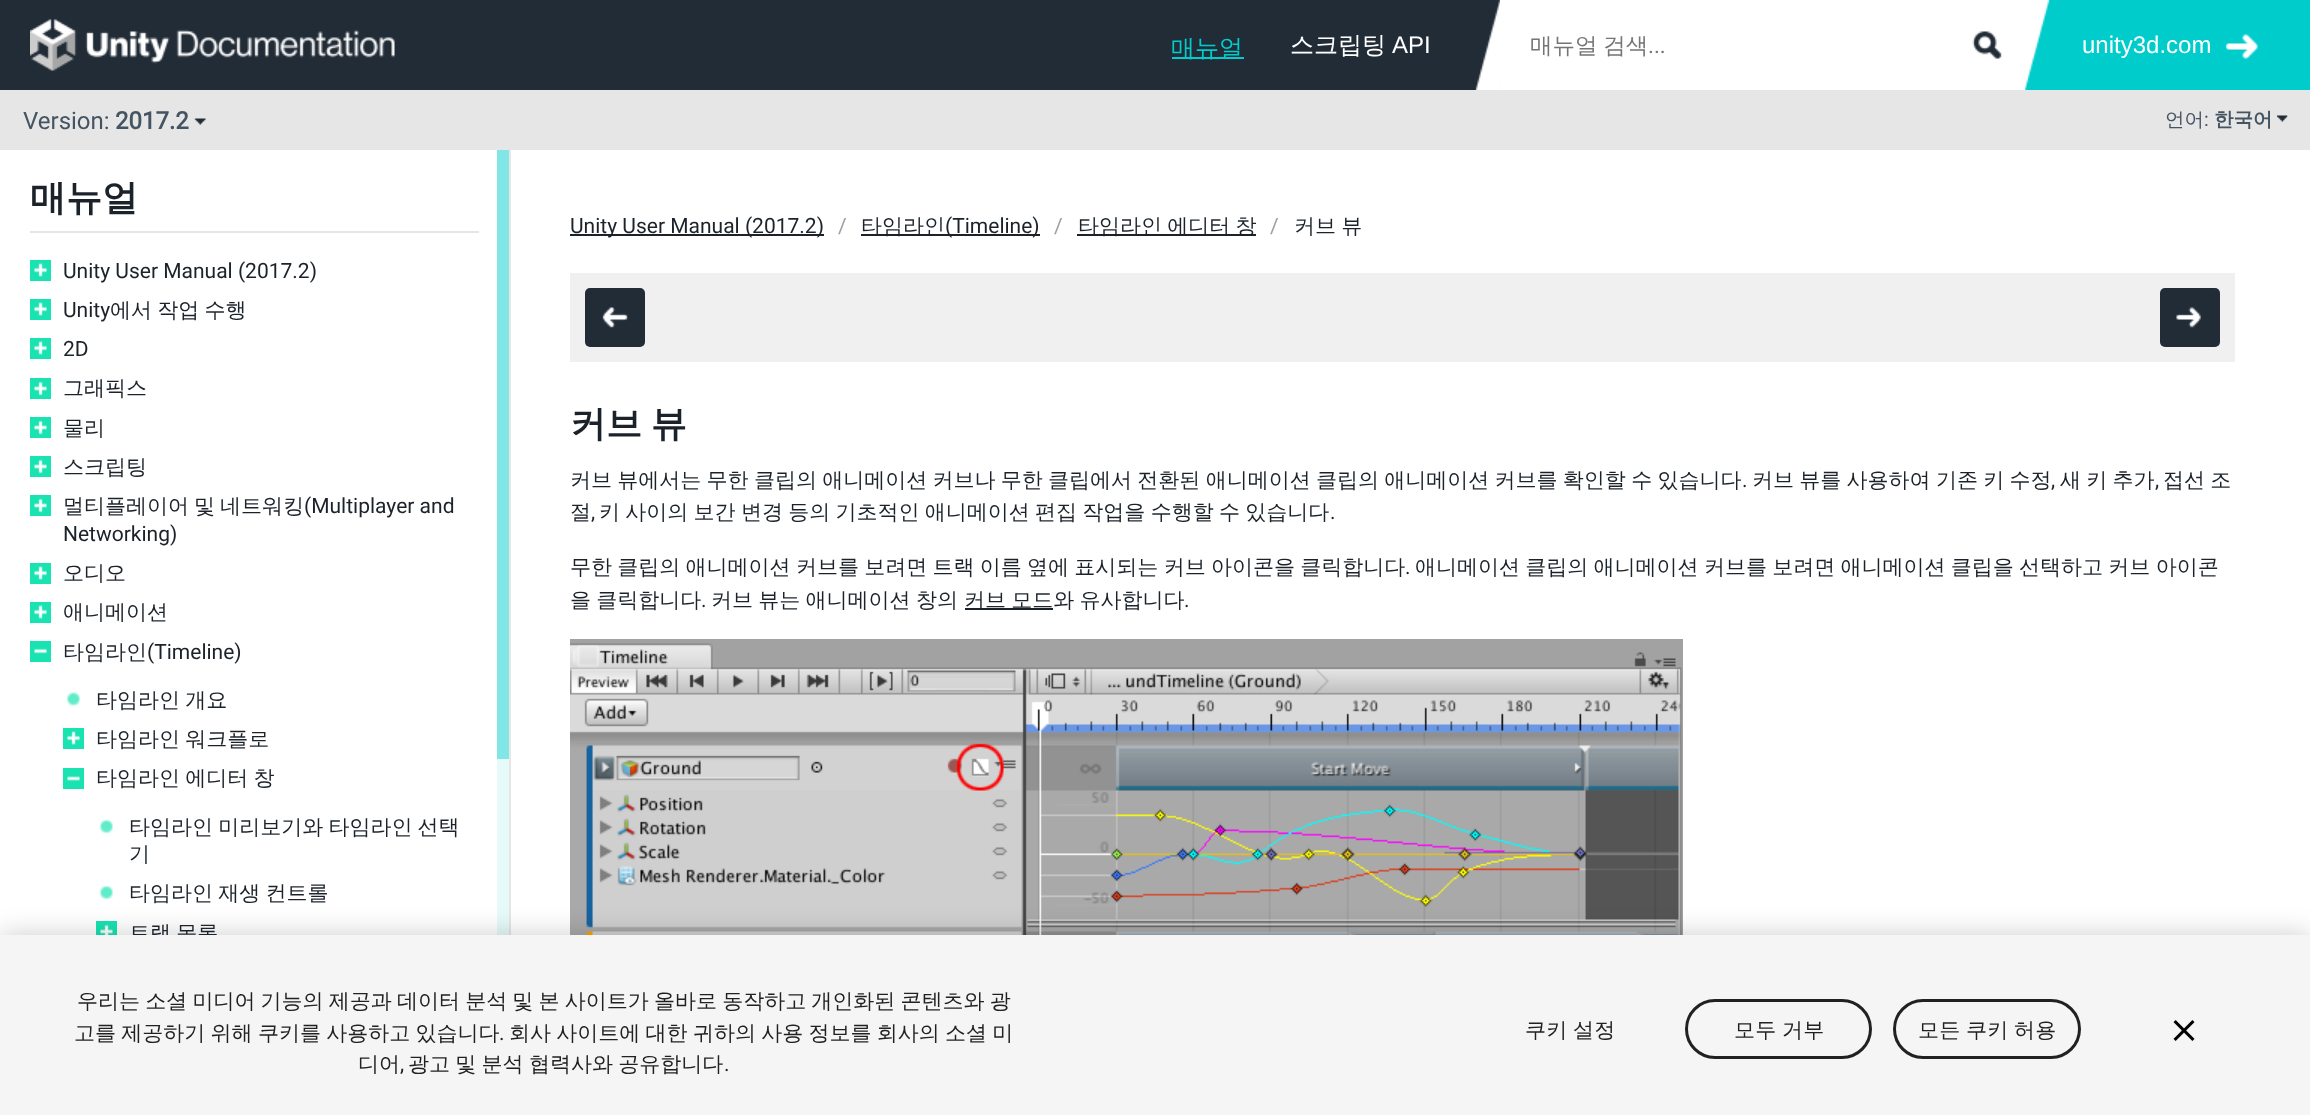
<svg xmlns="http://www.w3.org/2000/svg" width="2310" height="1115">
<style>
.a{font:500 24px WenQuanYi Zen Hei;fill:#0cc}
.b{font:500 24px WenQuanYi Zen Hei;fill:#fff}
.c{font:24px Liberation Sans;fill:#fff}
.d{font:500 22.5px WenQuanYi Zen Hei;fill:#757575}
.e{font:22.5px Roboto;fill:#757575}
.f{font:24px Roboto;fill:#455463}
.g{font:bold 24px Roboto;fill:#455463}
.h{font:500 19.5px WenQuanYi Zen Hei;fill:#455463}
.i{font:19.5px Roboto;fill:#455463}
.j{font:bold 19.5px WenQuanYi Zen Hei;fill:#455463}
.k{font:bold 36px WenQuanYi Zen Hei;fill:#1b2229}
.l{font:21px Roboto;fill:#1b2229}
.m{font:500 21px WenQuanYi Zen Hei;fill:#1b2229}
.n{font:21px Roboto;fill:#99a0a7}
.o{font:500 21px WenQuanYi Zen Hei;fill:#212121}
.p{font:21px Roboto;fill:#212121}
.q{font:500 21px WenQuanYi Zen Hei;letter-spacing:0.25px;fill:#212121}
</style>
<rect width="100%" height="100%" fill="#fff"/>
<path fill="#222c37" d="M0 0h1500v90H0z"/>
<image href="1.png" x="30" y="19" width="365" height="52"/>
<path fill="#0cc" d="M1172 57h72v2H1172z"/>
<image href="2.png" x="1475" y="0" width="25" height="90"/>
<image href="3.png" x="1972" y="31" width="30" height="28"/>
<path fill="#0cc" d="M2025 0h285v90H2025z"/>
<image href="4.png" x="2025" y="0" width="25" height="90"/>
<image href="5.png" x="2225" y="34" width="33" height="25"/>
<path fill="#e6e6e6" d="M0 90h2310v60H0z"/>
<image href="6.png" x="194" y="118" width="12" height="7"/>
<image href="7.png" x="2277" y="115" width="11" height="7"/>
<path fill="#e6e6e6" d="M509 150h2v785H509z"/>
<path fill="#e6e6e6" d="M30 231h449v2H30z"/>
<path fill="#19e3b1" d="M30 260h21v21H30z"/>
<image href="8.png" x="34" y="263" width="13" height="14"/>
<path fill="#19e3b1" d="M30 299h21v21H30z"/>
<image href="8.png" x="34" y="302" width="13" height="14"/>
<path fill="#19e3b1" d="M30 338h21v21H30z"/>
<image href="8.png" x="34" y="341" width="13" height="14"/>
<path fill="#19e3b1" d="M30 378h21v21H30z"/>
<image href="9.png" x="34" y="381" width="13" height="15"/>
<path fill="#19e3b1" d="M30 417h21v21H30z"/>
<image href="9.png" x="34" y="420" width="13" height="15"/>
<path fill="#19e3b1" d="M30 456h21v21H30z"/>
<image href="9.png" x="34" y="459" width="13" height="15"/>
<path fill="#19e3b1" d="M30 495h21v21H30z"/>
<image href="9.png" x="34" y="498" width="13" height="15"/>
<path fill="#19e3b1" d="M30 563h21v21H30z"/>
<image href="8.png" x="34" y="566" width="13" height="14"/>
<path fill="#19e3b1" d="M30 602h21v21H30z"/>
<image href="8.png" x="34" y="605" width="13" height="14"/>
<path fill="#19e3b1" d="M30 641h21v21H30z"/>
<image href="10.png" x="34" y="648" width="13" height="6"/>
<image href="11.png" x="67" y="692" width="13" height="14"/>
<path fill="#19e3b1" d="M63 728h21v21H63z"/>
<image href="8.png" x="67" y="731" width="13" height="14"/>
<path fill="#19e3b1" d="M63 768h21v21H63z"/>
<image href="12.png" x="67" y="776" width="13" height="5"/>
<image href="13.png" x="100" y="819" width="13" height="15"/>
<image href="13.png" x="100" y="885" width="13" height="15"/>
<path fill="#19e3b1" d="M96 921h21v14H96z"/>
<image href="14.png" x="100" y="924" width="13" height="11"/>
<path fill="#80e6e6" d="M497 150h12v609H497z"/>
<path fill="#e6fafa" d="M497 759h12v176H497z"/>
<path fill="#1b2229" d="M570 234h254v2H570z"/>
<path fill="#1b2229" d="M861 234h179v2H861z"/>
<path fill="#1b2229" d="M1077 234h179v2H1077z"/>
<path fill="#f0f0f0" d="M570 273h1665v89H570z"/>
<rect fill="#222c37" x="585" y="288" width="60" height="59" rx="5"/>
<image href="15.png" x="602" y="307" width="26" height="21"/>
<rect fill="#222c37" x="2160" y="288" width="60" height="59" rx="5"/>
<image href="16.png" x="2176" y="307" width="25" height="21"/>
<path fill="#1b2229" d="M965 608h88v2H965z"/>
<image href="17.png" x="570" y="639" width="1113" height="296"/>
<path fill="#00000033" filter="blur(13.5px)" d="M0 935h2310v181H0z"/>
<text class="a" x="1171" y="56">매뉴얼</text>
<text class="b" x="1290" y="53">스크립팅</text>
<text class="c" x="1392" y="53">API</text>
<text class="d" x="1530" y="53" word-spacing="-1">매뉴얼 검색</text>
<text class="e" x="1648" y="53">...</text>
<text class="c" x="2082" y="53">unity3d.com</text>
<text class="f" x="23" y="129">Version:</text>
<text class="g" x="115" y="129">2017.2</text>
<text class="h" x="2165" y="126">언어</text>
<text class="i" x="2204" y="126">:</text>
<text class="j" x="2214" y="126">한국어</text>
<text class="k" x="30" y="210">매뉴얼</text>
<text class="l" x="63" y="278">Unity User Manual (2017.2)</text>
<text class="l" x="63" y="317">Unity</text>
<text class="m" x="110" y="317" word-spacing="-1.1">에서 작업 수행</text>
<text class="l" x="63" y="356">2D</text>
<text class="m" x="63" y="395">그래픽스</text>
<text class="m" x="63" y="435">물리</text>
<text class="m" x="63" y="474">스크립팅</text>
<text class="m" x="63" y="513">멀티플레이어</text>
<text class="m" x="194" y="513">및</text>
<text class="m" x="220" y="513">네트워킹</text>
<text class="l" x="304" y="513">(Multiplayer and</text>
<text class="l" x="63" y="541">Networking)</text>
<text class="m" x="63" y="580">오디오</text>
<text class="m" x="63" y="619">애니메이션</text>
<text class="m" x="63" y="659">타임라인</text>
<text class="l" x="147" y="659">(Timeline)</text>
<text class="m" x="96" y="707" word-spacing="-1.1">타임라인 개요</text>
<text class="m" x="96" y="746" word-spacing="-1.1">타임라인 워크플로</text>
<text class="m" x="96" y="785" word-spacing="-1.1">타임라인 에디터 창</text>
<text class="m" x="129" y="834" word-spacing="-1.1">타임라인 미리보기와 타임라인 선택</text>
<text class="m" x="129" y="861">기</text>
<text class="m" x="129" y="900" word-spacing="-1.1">타임라인 재생 컨트롤</text>
<text class="m" x="129" y="940" word-spacing="-1.1">트랙 목록</text>
<text class="l" x="570" y="233">Unity User Manual (2017.2)</text>
<text class="n" x="838" y="233">/</text>
<text class="m" x="861" y="233">타임라인</text>
<text class="l" x="945" y="233">(Timeline)</text>
<text class="n" x="1054" y="233">/</text>
<text class="m" x="1078" y="233" word-spacing="-1.1">타임라인 에디터 창</text>
<text class="n" x="1270" y="233">/</text>
<text class="m" x="1294" y="233" word-spacing="-1.1">커브 뷰</text>
<text class="k" x="570" y="436" word-spacing="-2">커브 뷰</text>
<text class="m" x="570" y="487" word-spacing="-1">커브 뷰에서는 무한 클립의 애니메이션 커브나 무한 클립에서 전환된 애니메이션 클립의 애니메이션 커브를 확인할 수 있습니다</text>
<text class="l" x="1742" y="487">.</text>
<text class="m" x="1752" y="487" word-spacing="-1">커브 뷰를 사용하여 기존 키 수정</text>
<text class="l" x="2051" y="487">,</text>
<text class="m" x="2060" y="487" word-spacing="-1">새 키 추가</text>
<text class="l" x="2155" y="487">,</text>
<text class="m" x="2163" y="487" word-spacing="-1">접선 조</text>
<text class="m" x="570" y="519">절</text>
<text class="l" x="591" y="519">,</text>
<text class="m" x="599" y="519" word-spacing="-1">키 사이의 보간 변경 등의 기초적인 애니메이션 편집 작업을 수행할 수 있습니다</text>
<text class="l" x="1330" y="519">.</text>
<text class="m" x="570" y="574" word-spacing="-1">무한 클립의 애니메이션 커브를 보려면 트랙 이름 옆에 표시되는 커브 아이콘을 클릭합니다</text>
<text class="l" x="1405" y="574">.</text>
<text class="m" x="1415" y="574" word-spacing="-1">애니메이션 클립의 애니메이션 커브를 보려면 애니메이션 클립을 선택하고 커브 아이콘</text>
<text class="m" x="570" y="607" word-spacing="-1">을 클릭합니다</text>
<text class="l" x="701" y="607">.</text>
<text class="m" x="711" y="607" word-spacing="-1">커브 뷰는 애니메이션 창의</text>
<text class="m" x="964" y="607" word-spacing="-1.1">커브 모드와 유사합니다</text>
<text class="l" x="1184" y="607">.</text>
<path fill="#f5f5f5" d="M0 935h2310v180H0z"/>
<text class="o" x="77" y="1008" word-spacing="-1.1">우리는 소셜 미디어 기능의 제공과 데이터 분석 및 본 사이트가 올바로 동작하고 개인화된 콘텐츠와 광</text>
<text class="o" x="74" y="1040" word-spacing="-1">고를 제공하기 위해 쿠키를 사용하고 있습니다</text>
<text class="p" x="499" y="1040">.</text>
<text class="o" x="509" y="1040" word-spacing="-1">회사 사이트에 대한 귀하의 사용 정보를 회사의 소셜 미</text>
<text class="o" x="358" y="1071">디어</text>
<text class="p" x="400" y="1071">,</text>
<text class="o" x="408" y="1071" word-spacing="-1">광고 및 분석 협력사와 공유합니다</text>
<text class="p" x="724" y="1071">.</text>
<text class="q" x="1525" y="1037" word-spacing="-1.1">쿠키 설정</text>
<rect fill="none" stroke="#212121" stroke-width="3" x="1686.5" y="1000.5" width="184" height="57" rx="28.5"/>
<text class="q" x="1734" y="1037" word-spacing="-1.1">모두 거부</text>
<rect fill="none" stroke="#212121" stroke-width="3" x="1894.5" y="1000.5" width="185" height="57" rx="28.5"/>
<text class="q" x="1918" y="1037" word-spacing="-1.1">모든 쿠키 허용</text>
<image href="18.png" x="2173" y="1020" width="22" height="21"/>
</svg>
